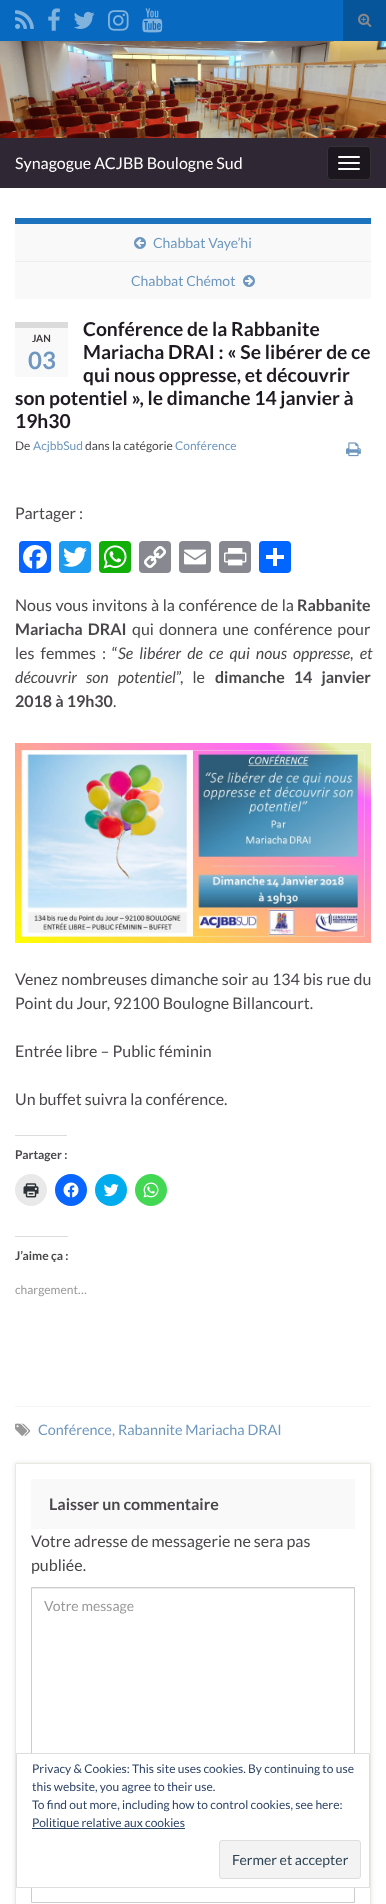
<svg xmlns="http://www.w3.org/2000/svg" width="386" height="1904">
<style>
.a{font:16px Lato;fill:#fff}
.b{font:14px Lato;fill:#6d97bf}
.c{font:bold 19.25px Lato;fill:#1f1a22}
.d{font:bold 10px Lato;fill:#3b383d}
.e{font:bold 24px Lato;fill:#6d97bf}
.f{font:12px Lato;fill:#4a474b}
.g{font:12px Lato;fill:#6d97bf}
.h{font:16px Lato;fill:#4a474b}
.i{font:bold 16px Lato;fill:#4a474b}
.j{font:italic 16px Lato;fill:#4a474b}
.k{font:bold 12px Lato;fill:#4a474b}
.l{font:12px Lato;fill:#999}
.m{font:14.4px Lato;fill:#6d97bf}
.n{font:14.4px Lato;fill:#999}
.o{font:14px Lato;fill:#999}
.p{font:12px Lato;fill:#2e4467}
.q{font:14px Lato;fill:#2e4453}
</style>
<defs>
<clipPath id="clip1"><path d="M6 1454h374v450h-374zm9 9h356v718h-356z" clip-rule="evenodd"/></clipPath>
</defs>
<rect width="100%" height="100%" fill="#0769bf"/>
<image href="1.png" x="15" y="10" width="19" height="19"/>
<image href="2.png" x="48" y="8" width="12" height="23"/>
<image href="3.png" x="74" y="11" width="21" height="18"/>
<image href="4.png" x="108" y="10" width="21" height="21"/>
<image href="5.png" x="142" y="8" width="21" height="25"/>
<path fill="#065499" d="M343 0h43v41H343z"/>
<image href="6.png" x="358" y="13" width="14" height="14"/>
<image href="7.png" x="0" y="41" width="386" height="97"/>
<path fill="#2f2733" d="M0 138h386v50H0z"/>
<rect fill="#1c171f" stroke="#333" x="327.5" y="146.5" width="43" height="33" rx="3.5"/>
<rect fill="#fff" x="338" y="156" width="22" height="2" rx="1"/>
<rect fill="#fff" x="338" y="162" width="22" height="2" rx="1"/>
<rect fill="#fff" x="338" y="168" width="22" height="2" rx="1"/>
<path fill="#fff" d="M0 188h386v1716H0z"/>
<path fill="#f9f9f9" d="M15 224h356v75H15z"/>
<path fill="#1e73be" d="M15 218h356v6H15z"/>
<image href="8.png" x="134" y="237" width="12" height="12"/>
<path fill="#eee" d="M15 261h356v1H15z"/>
<image href="9.png" x="243" y="275" width="12" height="12"/>
<path fill="#f9f9f9" d="M15 328h53v49H15z"/>
<path fill="#dbdbdb" d="M15 322h53v6H15z"/>
<image href="10.png" x="346" y="442" width="15" height="15"/>
<rect fill="#0866ff" x="19" y="541" width="32" height="32" rx="4"/>
<image href="11.png" x="23" y="545" width="24" height="24"/>
<rect fill="#1d9bf0" x="59" y="541" width="32" height="32" rx="4"/>
<image href="12.png" x="63" y="547" width="24" height="20"/>
<rect fill="#12af0a" x="99" y="541" width="32" height="32" rx="4"/>
<image href="13.png" x="103" y="545" width="24" height="24"/>
<rect fill="#888990" x="139" y="541" width="32" height="32" rx="4"/>
<image href="14.png" x="144" y="546" width="22" height="22"/>
<rect fill="#888990" x="179" y="541" width="32" height="32" rx="4"/>
<image href="15.png" x="184" y="549" width="22" height="16"/>
<rect fill="#888990" x="219" y="541" width="32" height="32" rx="4"/>
<image href="16.png" x="224" y="548" width="23" height="18"/>
<rect fill="#0166ff" x="259" y="541" width="32" height="32" rx="4"/>
<path fill="#fff" d="M273 548h4v18H273z"/>
<path fill="#fff" d="M266 555h18v4H266z"/>
<image href="17.png" x="15" y="743" width="356" height="200"/>
<path fill="#dcdcde" d="M15 1135h52v1H15z"/>
<circle fill="#e9e9e9" cx="31" cy="1190" r="16"/>
<image href="18.png" x="23" y="1183" width="16" height="15"/>
<circle fill="#0866ff" cx="71" cy="1190" r="16"/>
<image href="19.png" x="63" y="1182" width="16" height="16"/>
<circle fill="#00acee" cx="111" cy="1190" r="16"/>
<image href="20.png" x="103" y="1184" width="16" height="13"/>
<circle fill="#43d854" cx="151" cy="1190" r="16"/>
<image href="21.png" x="143" y="1182" width="16" height="16"/>
<path fill="#dcdcde" d="M15 1236h53v1H15z"/>
<path fill="#f5f5f5" d="M15 1406h356v1H15z"/>
<image href="22.png" x="15" y="1423" width="16" height="13"/>
<g clip-path="url(#clip1)">
<path fill="#0000001a" filter="blur(2.5px)" d="M15 1463h356v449H15z"/>
</g>
<path fill="none" stroke="#e9e8e3" d="M15.5 1463.5h355v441H15.5z"/>
<path fill="#f9f9f9" d="M31 1479h324v50H31z"/>
<path fill="#ececec" d="M32 1588h322v1H32z"/>
<path fill="none" stroke="#ccc" d="M31.5 1587.5h323v217H31.5z"/>
<path fill="none" stroke="#ccc" d="M31.5 1869.5h323v33H31.5z"/>
<path fill="#fff" d="M31 1754h324v133H31z"/>
<path fill="none" stroke="#dedede" d="M16.5 1753.5h353v134H16.5z"/>
<path fill="#2e4467" d="M32 1828h153v1H32z"/>
<rect fill="#f3f3f3" stroke="#dedede" x="219.5" y="1840.5" width="141" height="38" rx="2.5"/>
<text class="a" x="15" y="169">Synagogue ACJBB Boulogne Sud</text>
<text class="b" x="153" y="248">Chabbat Vaye’hi</text>
<text class="b" x="131" y="286">Chabbat Chémot</text>
<text class="c" x="83" y="336">Conférence de la Rabbanite</text>
<text class="c" x="83" y="359">Mariacha DRAI : « Se libérer de ce</text>
<text class="c" x="83" y="382">qui nous oppresse, et découvrir</text>
<text class="c" x="15" y="405">son potentiel », le dimanche 14 janvier à</text>
<text class="c" x="15" y="428">19h30</text>
<text class="d" x="32" y="342">JAN</text>
<text class="e" x="28" y="369">03</text>
<text class="f" x="15" y="450">De</text>
<text class="g" x="33" y="450">AcjbbSud</text>
<text class="f" x="85" y="450">dans la catégorie</text>
<text class="g" x="175" y="450">Conférence</text>
<text class="h" x="15" y="519">Partager :</text>
<text class="h" x="15" y="611" word-spacing="0.5">Nous vous invitons à la conférence de la</text>
<text class="i" x="297" y="611">Rabbanite</text>
<text class="i" x="15" y="635" word-spacing="2">Mariacha DRAI</text>
<text class="h" x="132" y="635" word-spacing="2">qui donnera une conférence pour</text>
<text class="h" x="15" y="659" word-spacing="3">les femmes : “</text>
<text class="j" x="118" y="659" word-spacing="3">Se libérer de ce qui nous oppresse, et</text>
<text class="j" x="15" y="683" word-spacing="6">découvrir son potentiel</text>
<text class="h" x="176" y="683" word-spacing="6">”, le</text>
<text class="i" x="215" y="683" word-spacing="6">dimanche 14 janvier</text>
<text class="i" x="15" y="707">2018 à 19h30</text>
<text class="h" x="113" y="707">.</text>
<text class="h" x="15" y="985" word-spacing="0.25">Venez nombreuses dimanche soir au 134 bis rue du</text>
<text class="h" x="15" y="1009">Point du Jour, 92100 Boulogne Billancourt.</text>
<text class="h" x="15" y="1057">Entrée libre – Public féminin</text>
<text class="h" x="15" y="1105">Un buffet suivra la conférence.</text>
<text class="k" x="15" y="1159">Partager :</text>
<text class="k" x="15" y="1260">J’aime ça :</text>
<text class="l" x="15" y="1294">chargement…</text>
<text class="m" x="38" y="1435">Conférence</text>
<text class="n" x="112" y="1435">,</text>
<text class="m" x="118" y="1435">Rabannite Mariacha DRAI</text>
<text class="i" x="49" y="1510">Laisser un commentaire</text>
<text class="h" x="31" y="1547">Votre adresse de messagerie ne sera pas</text>
<text class="h" x="31" y="1571">publiée.</text>
<text class="o" x="44" y="1611">Votre message</text>
<text class="p" x="32" y="1773">Privacy &amp; Cookies: This site uses cookies. By continuing to use</text>
<text class="p" x="32" y="1791">this website, you agree to their use.</text>
<text class="p" x="32" y="1809">To find out more, including how to control cookies, see here:</text>
<text class="p" x="32" y="1827">Politique relative aux cookies</text>
<text class="q" x="232" y="1865">Fermer et accepter</text>
</svg>
